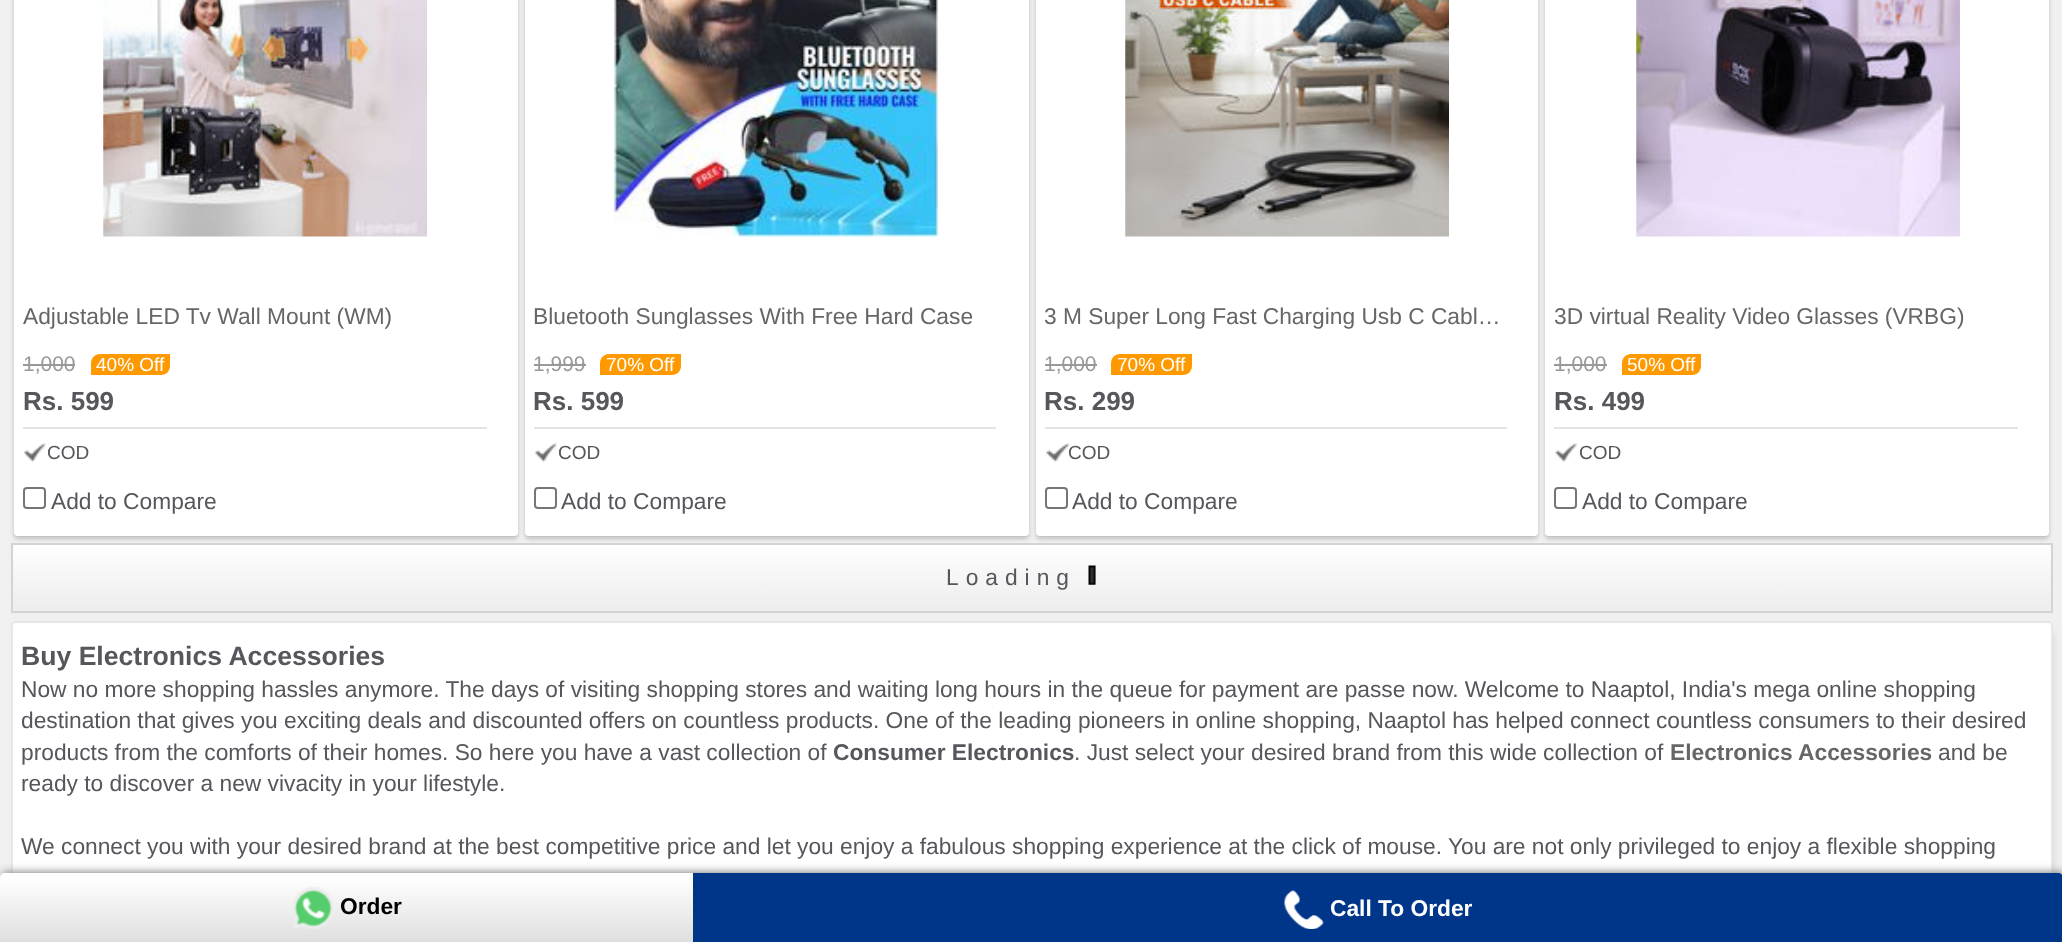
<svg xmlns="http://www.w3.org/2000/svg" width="2062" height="942">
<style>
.a{font:22.75px Liberation Sans;fill:#666}
.b{font:21px Liberation Sans;fill:#999}
.c{font:19px Liberation Sans;fill:#fff}
.d{font:bold 26px Liberation Sans;fill:#56565c}
.e{font:19px Liberation Sans;fill:#56565c}
.f{font:22.75px Liberation Sans;fill:#56565c}
.g{font:22.75px Liberation Sans;letter-spacing:7px;fill:#56565c}
.h{font:bold 26.6px Liberation Sans;fill:#56565c}
.i{font:bold 22.75px Liberation Sans;fill:#56565c}
.j{font:bold 22.75px Liberation Sans;fill:#666}
.k{font:bold 22.75px Liberation Sans;fill:#000}
.l{font:bold 22.75px Liberation Sans;fill:#fff}
</style>
<defs>
<linearGradient id="g1" gradientUnits="userSpaceOnUse" x1="1032" y1="544" x2="1032" y2="611"><stop offset="0" stop-color="#fff"/><stop offset="0.47" stop-color="#f6f6f6"/><stop offset="1" stop-color="#ededed"/></linearGradient>
<linearGradient id="g2" gradientUnits="userSpaceOnUse" x1="347" y1="873" x2="347" y2="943"><stop offset="0.05" stop-color="#fff"/><stop offset="1" stop-color="#dedede"/></linearGradient>
</defs>
<rect width="100%" height="100%" fill="#f0f0f0"/>
<path fill="url(#g1)" d="M13 545h2038v66H13z"/>
<path fill="none" stroke="#d3d3d3" stroke-width="2" d="M12 544h2040v68H12z"/>
<rect fill="#00000033" filter="blur(2px)" x="14" y="-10" width="504" height="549" rx="4"/>
<rect fill="#fff" x="14" y="-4" width="504" height="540" rx="4"/>
<image href="1.png" x="103" y="0" width="324" height="237"/>
<path fill="#999" d="M23 364h52v2H23z"/>
<path fill="#f90" d="M100 354h70v12c0 5-4 9-9 9h-70v-12c0-5 4-9 9-9z"/>
<path fill="#e4e4e4" d="M23 427h464v2H23z"/>
<image href="2.png" x="24" y="443" width="22" height="20"/>
<rect fill="none" stroke="#767676" stroke-width="2" x="24" y="488" width="21" height="20" rx="3"/>
<rect fill="#00000033" filter="blur(2px)" x="525" y="-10" width="504" height="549" rx="4"/>
<rect fill="#fff" x="525" y="-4" width="504" height="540" rx="4"/>
<image href="3.png" x="614" y="0" width="324" height="237"/>
<path fill="#999" d="M534 364h52v2H534z"/>
<path fill="#f90" d="M609 354h72v12c0 5-4 9-9 9h-72v-12c0-5 4-9 9-9z"/>
<path fill="#e4e4e4" d="M534 427h462v2H534z"/>
<image href="2.png" x="535" y="443" width="22" height="20"/>
<rect fill="none" stroke="#767676" stroke-width="2" x="535" y="488" width="21" height="20" rx="3"/>
<rect fill="#00000033" filter="blur(2px)" x="1036" y="-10" width="502" height="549" rx="4"/>
<rect fill="#fff" x="1036" y="-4" width="502" height="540" rx="4"/>
<image href="4.png" x="1125" y="0" width="324" height="237"/>
<path fill="#999" d="M1045 364h52v2H1045z"/>
<path fill="#f90" d="M1120 354h72v12c0 5-4 9-9 9h-72v-12c0-5 4-9 9-9z"/>
<path fill="#e4e4e4" d="M1045 427h462v2H1045z"/>
<image href="5.png" x="1046" y="443" width="24" height="20"/>
<rect fill="none" stroke="#767676" stroke-width="2" x="1046" y="488" width="21" height="20" rx="3"/>
<rect fill="#00000033" filter="blur(2px)" x="1545" y="-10" width="504" height="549" rx="4"/>
<rect fill="#fff" x="1545" y="-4" width="504" height="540" rx="4"/>
<image href="6.png" x="1636" y="0" width="324" height="237"/>
<path fill="#999" d="M1554 364h53v2H1554z"/>
<path fill="#f90" d="M1631 354h70v12c0 5-4 9-9 9h-70v-12c0-5 4-9 9-9z"/>
<path fill="#e4e4e4" d="M1554 427h464v2H1554z"/>
<image href="7.png" x="1555" y="443" width="22" height="20"/>
<rect fill="none" stroke="#767676" stroke-width="2" x="1555" y="488" width="21" height="20" rx="3"/>
<image href="8.png" x="1088" y="565" width="8" height="20"/>
<path fill="#d3d3d3" filter="blur(3.5px)" d="M21 632h2032v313H21z"/>
<rect fill="#fff" stroke="#e7e7e7" stroke-width="2" x="12" y="622" width="2040" height="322" rx="4"/>
<rect fill="#808080" filter="blur(4.5px)" x="2" y="872" width="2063" height="70" rx="5"/>
<path fill="url(#g2)" d="M5 873h688v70h-688c-3 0-5-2-5-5v-60c0-3 2-5 5-5z"/>
<image href="9.png" x="293" y="887" width="40" height="42"/>
<path fill="#00368a" d="M693 873h1365c3 0 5 2 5 5v60c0 3-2 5-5 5h-1365z"/>
<image href="10.png" x="1284" y="890" width="40" height="39"/>
<text class="a" x="23" y="324">Adjustable LED Tv Wall Mount (WM)</text>
<text class="b" x="23" y="371">1,000</text>
<text class="c" x="96" y="371">40% Off</text>
<text class="d" x="23" y="410">Rs. 599</text>
<text class="e" x="47" y="459">COD</text>
<text class="f" x="51" y="509">Add to Compare</text>
<text class="a" x="533" y="324">Bluetooth Sunglasses With Free Hard Case</text>
<text class="b" x="533" y="371">1,999</text>
<text class="c" x="606" y="371">70% Off</text>
<text class="d" x="533" y="410">Rs. 599</text>
<text class="e" x="558" y="459">COD</text>
<text class="f" x="561" y="509">Add to Compare</text>
<text class="a" x="1044" y="324">3 M Super Long Fast Charging Usb C Cabl…</text>
<text class="b" x="1044" y="371">1,000</text>
<text class="c" x="1117" y="371">70% Off</text>
<text class="d" x="1044" y="410">Rs. 299</text>
<text class="e" x="1068" y="459">COD</text>
<text class="f" x="1072" y="509">Add to Compare</text>
<text class="a" x="1554" y="324">3D virtual Reality Video Glasses (VRBG)</text>
<text class="b" x="1554" y="371">1,000</text>
<text class="c" x="1627" y="371">50% Off</text>
<text class="d" x="1554" y="410">Rs. 499</text>
<text class="e" x="1579" y="459">COD</text>
<text class="f" x="1582" y="509">Add to Compare</text>
<text class="g" x="946" y="585">Loading</text>
<text class="h" x="21" y="665">Buy Electronics Accessories</text>
<text class="f" x="21" y="697">Now no more shopping hassles anymore. The days of visiting shopping stores and waiting long hours in the queue for payment are passe now. Welcome to Naaptol, India's mega online shopping</text>
<text class="f" x="21" y="728">destination that gives you exciting deals and discounted offers on countless products. One of the leading pioneers in online shopping, Naaptol has helped connect countless consumers to their desired</text>
<text class="f" x="21" y="760">products from the comforts of their homes. So here you have a vast collection of</text>
<text class="i" x="833" y="760">Consumer Electronics</text>
<text class="f" x="1074" y="760">. Just select your desired brand from this wide collection of</text>
<text class="j" x="1670" y="760">Electronics Accessories</text>
<text class="f" x="1938" y="760">and be</text>
<text class="f" x="21" y="791">ready to discover a new vivacity in your lifestyle.</text>
<text class="f" x="21" y="854">We connect you with your desired brand at the best competitive price and let you enjoy a fabulous shopping experience at the click of mouse. You are not only privileged to enjoy a flexible shopping</text>
<text class="k" x="340" y="914">Order</text>
<text class="l" x="1330" y="916">Call To Order</text>
</svg>
